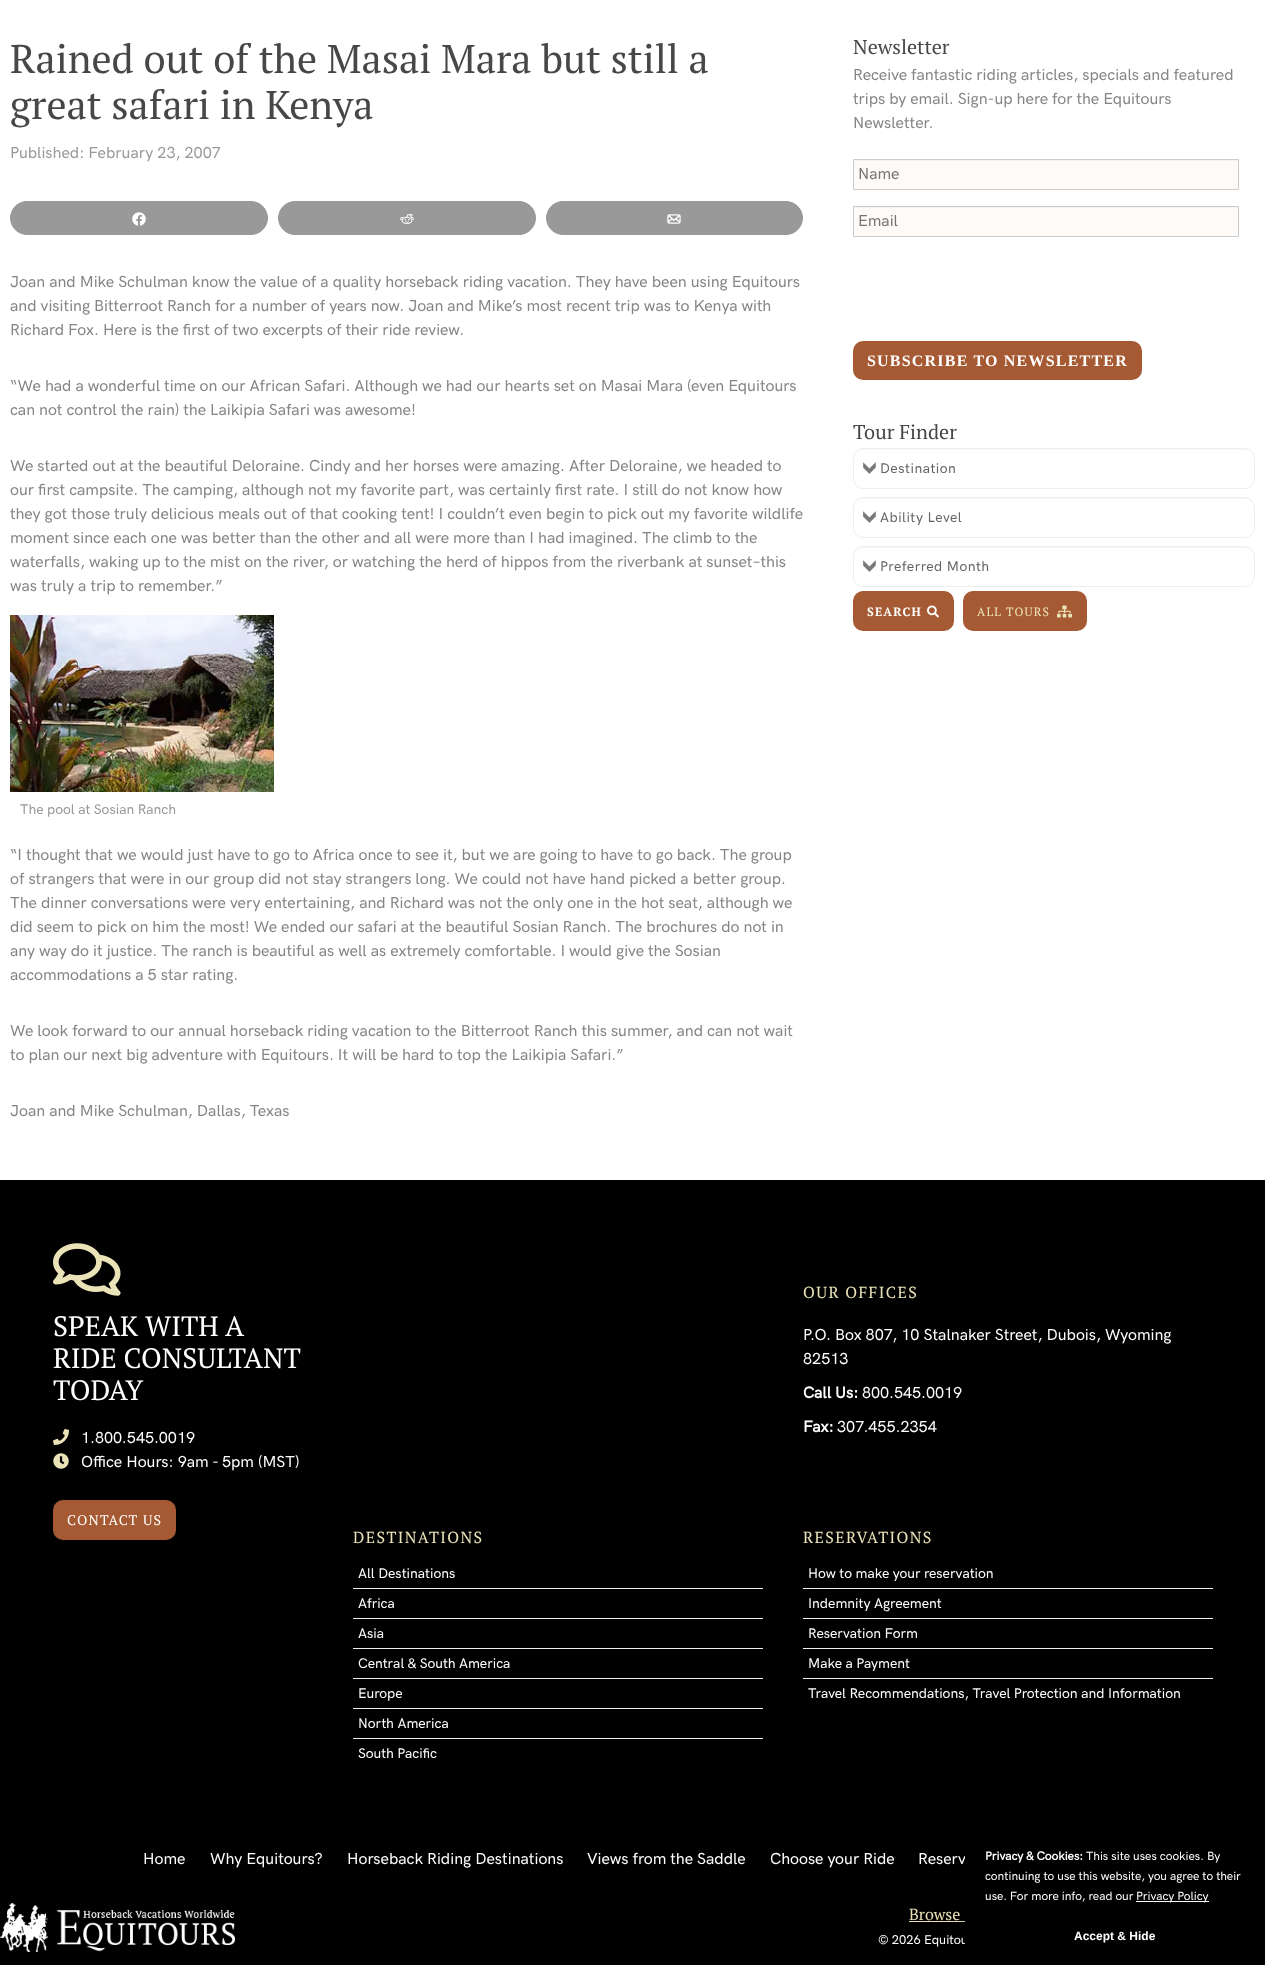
<svg xmlns="http://www.w3.org/2000/svg" width="1265" height="1965">
<style>
.a{font:40px PT Serif;fill:#474747}
.b{font:500 16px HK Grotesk;fill:#999}
.c{font:500 16px HK Grotesk;fill:#858585}
.d{font:500 14px HK Grotesk;fill:#999}
.e{font:20px PT Serif;fill:#474747}
.f{font:500 16px HK Grotesk;fill:#757575}
.g{font:bold 16px Liberation Serif;letter-spacing:1.2px;fill:#fff}
.h{font:500 14px HK Grotesk;letter-spacing:0.5px;fill:#666}
.i{font:bold 12px PT Serif;letter-spacing:1.2px;fill:#fff}
.j{font:12px PT Serif;letter-spacing:1.2px;fill:#eae3b8}
.k{font:28px PT Serif;fill:#fff}
.l{font:500 16px HK Grotesk;fill:#fff}
.m{font:14px PT Serif;letter-spacing:1.2px;fill:#fff}
.n{font:16px PT Serif;letter-spacing:1.4px;fill:#eae3b8}
.o{font:bold 16px HK Grotesk;fill:#fff}
.p{font:500 14px HK Grotesk;fill:#fff}
.q{font:16px PT Serif;fill:#eae3b8}
.r{font:500 12.75px HK Grotesk;fill:#fff}
.s{font:bold 12px HK Grotesk;fill:#fff}
.t{font:500 12px HK Grotesk;fill:#fff}
.u{font:bold 12px Liberation Sans;fill:#fff}
</style>
<rect width="100%" height="100%" fill="#000"/>
<path fill="#fff" d="M0 0h1265v1180H0z"/>
<rect fill="#999" stroke="#999" x="10.5" y="201.5" width="257" height="33" rx="16.5"/>
<image href="1.png" x="132" y="212" width="14" height="14"/>
<rect fill="#999" stroke="#999" x="278.5" y="201.5" width="257" height="33" rx="16.5"/>
<image href="2.png" x="400" y="213" width="14" height="11"/>
<rect fill="#999" stroke="#999" x="546.5" y="201.5" width="256" height="33" rx="16.5"/>
<image href="3.png" x="667" y="214" width="14" height="10"/>
<image href="4.png" x="10" y="615" width="264" height="177"/>
<path fill="#fdfaf7" d="M854 161h384v28H854z"/>
<path fill="#f5f3f0" d="M854 160h384v1H854z"/>
<path fill="none" stroke="#ccc" d="M853.5 159.5h385v30H853.5z"/>
<path fill="#fdfaf7" d="M854 208h384v28H854z"/>
<path fill="#f5f3f0" d="M854 207h384v1H854z"/>
<path fill="none" stroke="#ccc" d="M853.5 206.5h385v30H853.5z"/>
<rect fill="#a55a33" x="853" y="341" width="289" height="39" rx="10"/>
<path fill="#f7f7f7" d="M863 450h382c5 0 9 4 9 9c0-5-3-10-9-10h-382c-6 0-9 5-9 10c0-5 4-9 9-9z"/>
<rect fill="none" stroke="#efefef" x="853.5" y="448.5" width="401" height="40" rx="9.5"/>
<image href="5.png" x="863" y="462" width="13" height="12"/>
<path fill="#f7f7f7" d="M863 499h382c5 0 9 4 9 9c0-5-3-10-9-10h-382c-6 0-9 5-9 10c0-5 4-9 9-9z"/>
<rect fill="none" stroke="#efefef" x="853.5" y="497.5" width="401" height="40" rx="9.5"/>
<image href="5.png" x="863" y="511" width="13" height="12"/>
<path fill="#f7f7f7" d="M863 548h382c5 0 9 4 9 9c0-5-3-10-9-10h-382c-6 0-9 5-9 10c0-5 4-9 9-9z"/>
<rect fill="none" stroke="#efefef" x="853.5" y="546.5" width="401" height="40" rx="9.5"/>
<image href="5.png" x="863" y="560" width="13" height="12"/>
<rect fill="#a55a33" x="853" y="591" width="101" height="40" rx="10"/>
<image href="6.png" x="927" y="605" width="12" height="13"/>
<rect fill="#a55a33" x="963" y="591" width="124" height="40" rx="10"/>
<image href="7.png" x="1057" y="605" width="15" height="13"/>
<image href="8.png" x="53" y="1243" width="68" height="53"/>
<image href="9.png" x="53" y="1429" width="16" height="16"/>
<image href="10.png" x="53" y="1453" width="16" height="16"/>
<rect fill="#a55a33" x="53" y="1500" width="123" height="40" rx="10"/>
<path fill="#efefef" d="M353 1588h410v1H353z"/>
<path fill="#efefef" d="M353 1618h410v1H353z"/>
<path fill="#efefef" d="M353 1648h410v1H353z"/>
<path fill="#efefef" d="M353 1678h410v1H353z"/>
<path fill="#efefef" d="M353 1708h410v1H353z"/>
<path fill="#efefef" d="M353 1738h410v1H353z"/>
<path fill="#efefef" d="M803 1588h410v1H803z"/>
<path fill="#efefef" d="M803 1618h410v1H803z"/>
<path fill="#efefef" d="M803 1648h410v1H803z"/>
<path fill="#efefef" d="M803 1678h410v1H803z"/>
<image href="11.png" x="0" y="1903" width="235" height="49"/>
<path fill="#eae3b8" d="M909 1921h56v1H909z"/>
<rect fill="#00000033" filter="blur(10px)" x="965" y="1837" width="300" height="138" rx="10"/>
<text class="a" x="10" y="73">Rained out of the Masai Mara but still a</text>
<text class="a" x="10" y="119">great safari in Kenya</text>
<text class="b" x="10" y="158">Published: February 23, 2007</text>
<text class="c" x="10" y="287">Joan and Mike Schulman know the value of a quality horseback riding vacation. They have been using Equitours</text>
<text class="c" x="10" y="311">and visiting Bitterroot Ranch for a number of years now. Joan and Mike’s most recent trip was to Kenya with</text>
<text class="c" x="10" y="335">Richard Fox. Here is the first of two excerpts of their ride review.</text>
<text class="c" x="10" y="391">“We had a wonderful time on our African Safari. Although we had our hearts set on Masai Mara (even Equitours</text>
<text class="c" x="10" y="415">can not control the rain) the Laikipia Safari was awesome!</text>
<text class="c" x="10" y="471">We started out at the beautiful Deloraine. Cindy and her horses were amazing. After Deloraine, we headed to</text>
<text class="c" x="10" y="495">our first campsite. The camping, although not my favorite part, was certainly first rate. I still do not know how</text>
<text class="c" x="10" y="519">they got those truly delicious meals out of that cooking tent! I couldn’t even begin to pick out my favorite wildlife</text>
<text class="c" x="10" y="543">moment since each one was better than the other and all were more than I had imagined. The climb to the</text>
<text class="c" x="10" y="567">waterfalls, waking up to the mist on the river, or watching the herd of hippos from the riverbank at sunset–this</text>
<text class="c" x="10" y="591">was truly a trip to remember.”</text>
<text class="d" x="20" y="814">The pool at Sosian Ranch</text>
<text class="c" x="10" y="860">“I thought that we would just have to go to Africa once to see it, but we are going to have to go back. The group</text>
<text class="c" x="10" y="884">of strangers that were in our group did not stay strangers long. We could not have hand picked a better group.</text>
<text class="c" x="10" y="908">The dinner conversations were very entertaining, and Richard was not the only one in the hot seat, although we</text>
<text class="c" x="10" y="932">did seem to pick on him the most! We ended our safari at the beautiful Sosian Ranch. The brochures do not in</text>
<text class="c" x="10" y="956">any way do it justice. The ranch is beautiful as well as extremely comfortable. I would give the Sosian</text>
<text class="c" x="10" y="980">accommodations a 5 star rating.</text>
<text class="c" x="10" y="1036">We look forward to our annual horseback riding vacation to the Bitterroot Ranch this summer, and can not wait</text>
<text class="c" x="10" y="1060">to plan our next big adventure with Equitours. It will be hard to top the Laikipia Safari.”</text>
<text class="c" x="10" y="1116">Joan and Mike Schulman, Dallas, Texas</text>
<text class="e" x="853" y="54">Newsletter</text>
<text class="c" x="853" y="80">Receive fantastic riding articles, specials and featured</text>
<text class="c" x="853" y="104">trips by email. Sign-up here for the Equitours</text>
<text class="c" x="853" y="128">Newsletter.</text>
<text class="f" x="858" y="179">Name</text>
<text class="f" x="858" y="226">Email</text>
<text class="g" x="867" y="366">SUBSCRIBE TO NEWSLETTER</text>
<text class="e" x="853" y="439">Tour Finder</text>
<text class="h" x="880" y="473">Destination</text>
<text class="h" x="880" y="522">Ability Level</text>
<text class="h" x="880" y="571">Preferred Month</text>
<text class="i" x="867" y="616">SEARCH</text>
<text class="j" x="977" y="616">ALL TOURS</text>
<text class="k" x="53" y="1336">SPEAK WITH A</text>
<text class="k" x="53" y="1368">RIDE CONSULTANT</text>
<text class="k" x="53" y="1400">TODAY</text>
<text class="l" x="81" y="1443">1.800.545.0019</text>
<text class="l" x="81" y="1467">Office Hours: 9am - 5pm (MST)</text>
<text class="m" x="67" y="1525">CONTACT US</text>
<text class="n" x="803" y="1298">OUR OFFICES</text>
<text class="l" x="803" y="1340">P.O. Box 807, 10 Stalnaker Street, Dubois, Wyoming</text>
<text class="l" x="803" y="1364">82513</text>
<text class="o" x="803" y="1398">Call Us:</text>
<text class="l" x="862" y="1398">800.545.0019</text>
<text class="o" x="803" y="1432">Fax:</text>
<text class="l" x="837" y="1432">307.455.2354</text>
<text class="n" x="353" y="1543">DESTINATIONS</text>
<text class="p" x="358" y="1578">All Destinations</text>
<text class="p" x="358" y="1608">Africa</text>
<text class="p" x="358" y="1638">Asia</text>
<text class="p" x="358" y="1668">Central &amp; South America</text>
<text class="p" x="358" y="1698">Europe</text>
<text class="p" x="358" y="1728">North America</text>
<text class="p" x="358" y="1758">South Pacific</text>
<text class="n" x="803" y="1543">RESERVATIONS</text>
<text class="p" x="808" y="1578">How to make your reservation</text>
<text class="p" x="808" y="1608">Indemnity Agreement</text>
<text class="p" x="808" y="1638">Reservation Form</text>
<text class="p" x="808" y="1668">Make a Payment</text>
<text class="p" x="808" y="1698">Travel Recommendations, Travel Protection and Information</text>
<text class="l" x="143" y="1864">Home</text>
<text class="l" x="210" y="1864">Why Equitours?</text>
<text class="l" x="347" y="1864">Horseback Riding Destinations</text>
<text class="l" x="587" y="1864">Views from the Saddle</text>
<text class="l" x="770" y="1864">Choose your Ride</text>
<text class="l" x="918" y="1864">Reserv</text>
<text class="q" x="909" y="1920">Browse</text>
<text class="r" x="878" y="1944">© 2026 Equitou</text>
<path fill="#000" d="M975 1827h290v138h-300v-128c0-5.5 4.5-10 10-10z"/>
<text class="s" x="985" y="1860">Privacy &amp; Cookies:</text>
<text class="t" x="1086" y="1860">This site uses cookies. By</text>
<text class="t" x="985" y="1880">continuing to use this website, you agree to their</text>
<text class="t" x="985" y="1900">use. For more info, read our</text>
<path fill="#fff" d="M1136 1901h73v1H1136z"/>
<text class="t" x="1136" y="1900">Privacy Policy</text>
<text class="u" x="1074" y="1940">Accept &amp; Hide</text>
</svg>
